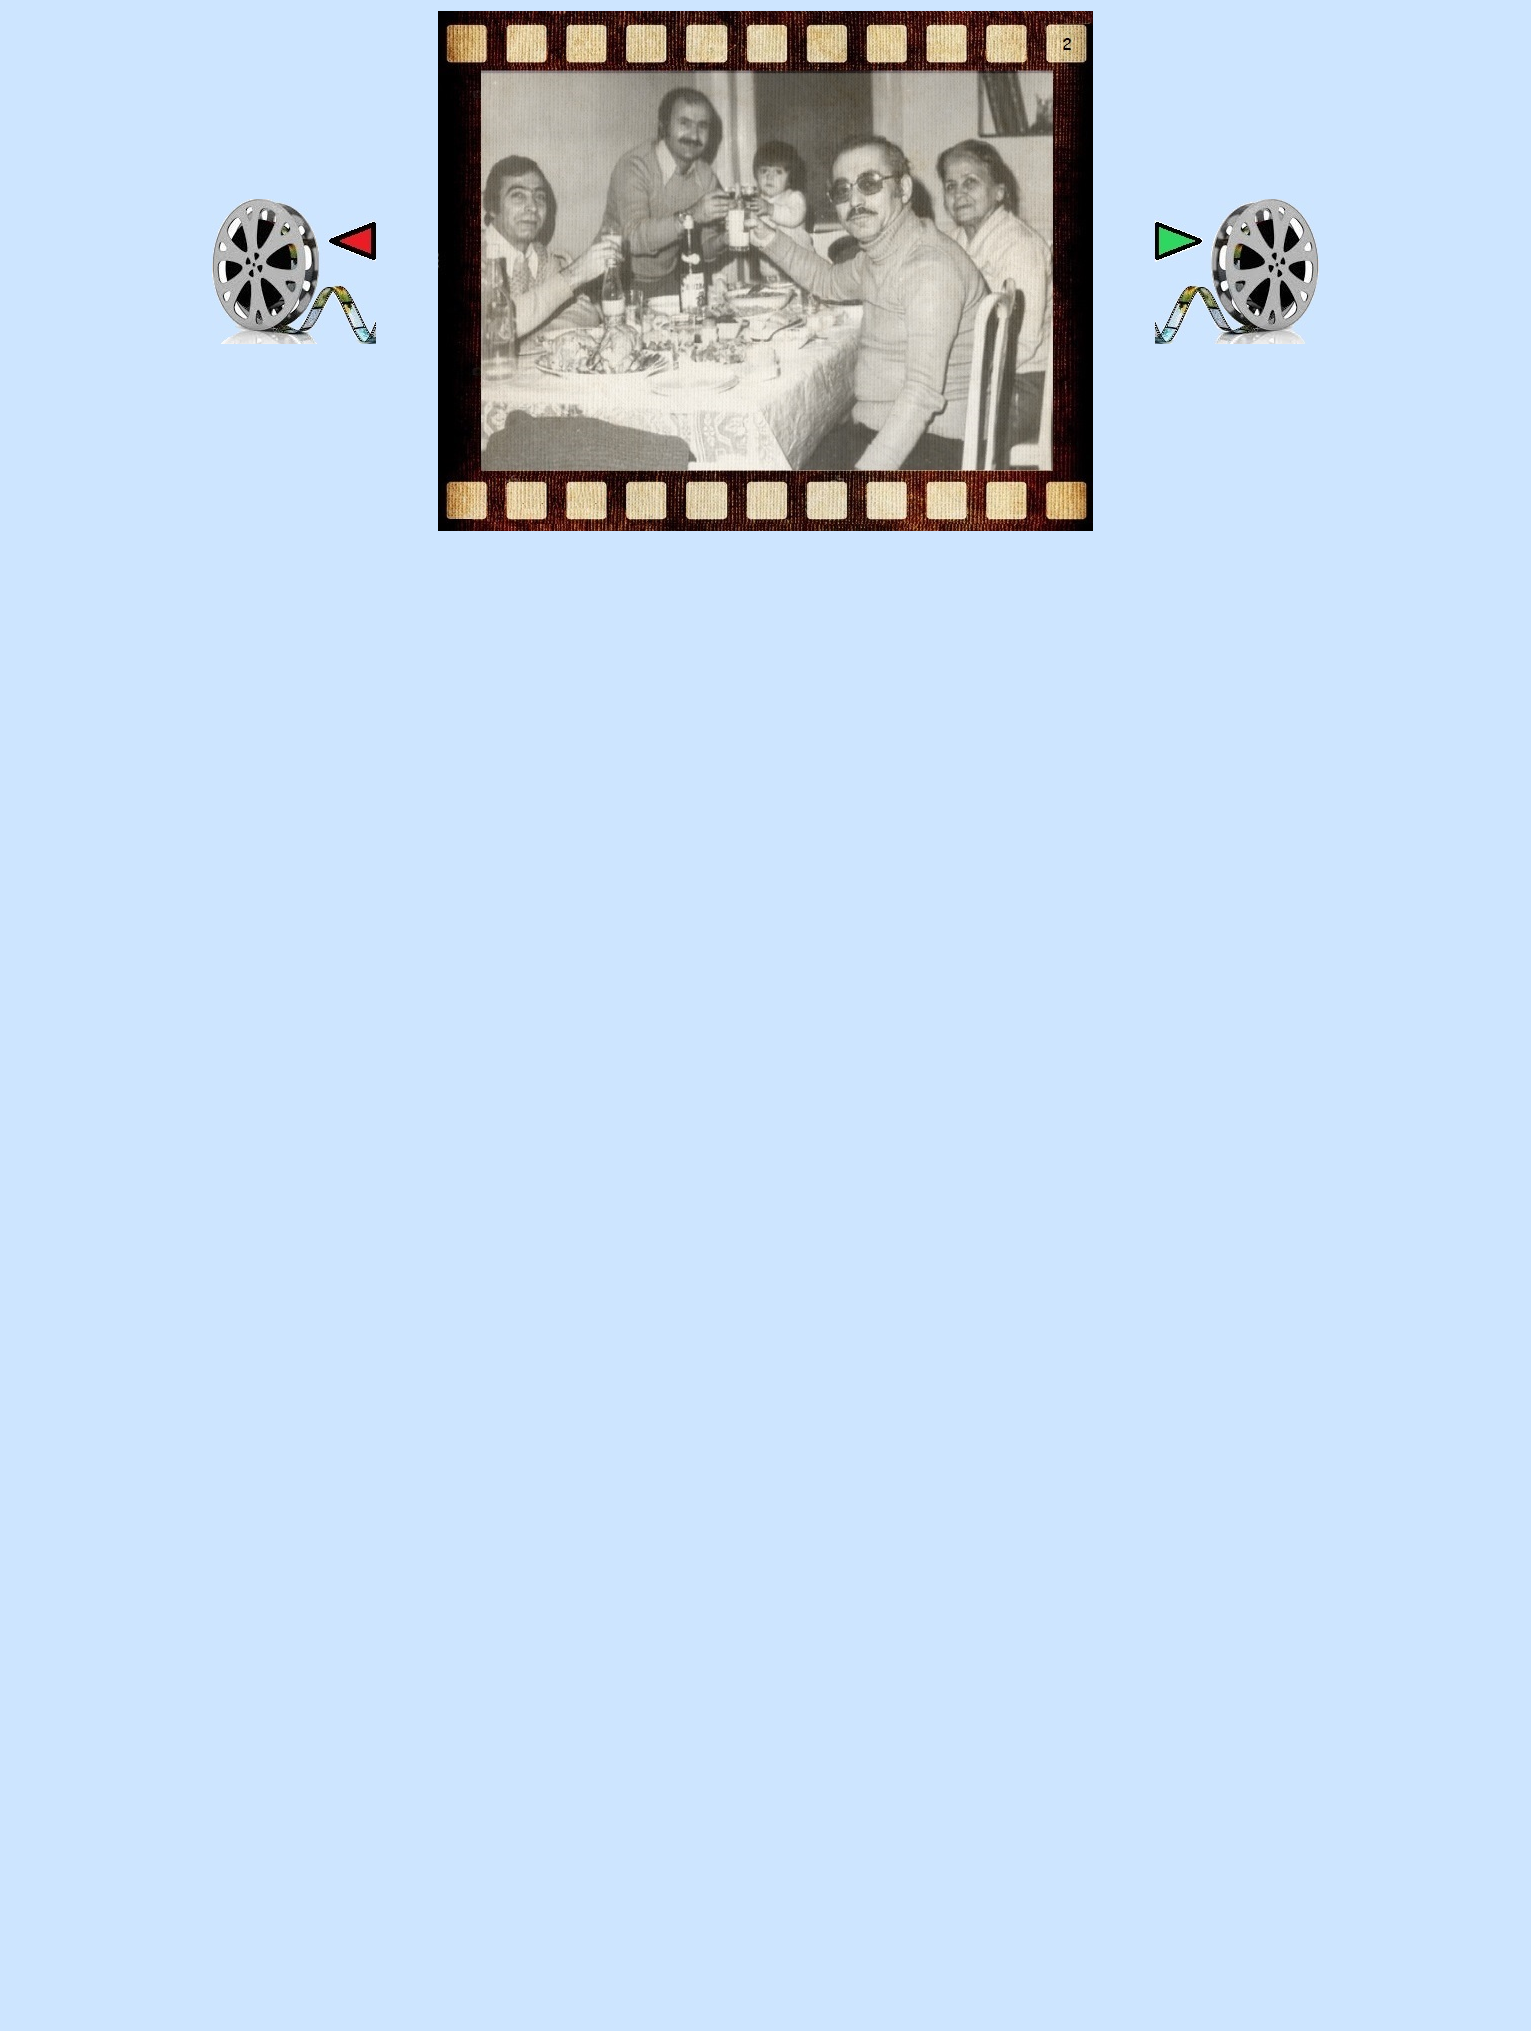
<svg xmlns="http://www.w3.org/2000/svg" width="1531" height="2031">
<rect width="100%" height="100%" fill="#cde5ff"/>
<image href="1.png" x="212" y="199" width="165" height="145"/>
<image href="2.png" x="438" y="11" width="655" height="520"/>
<image href="3.png" x="1154" y="199" width="165" height="145"/>
</svg>
